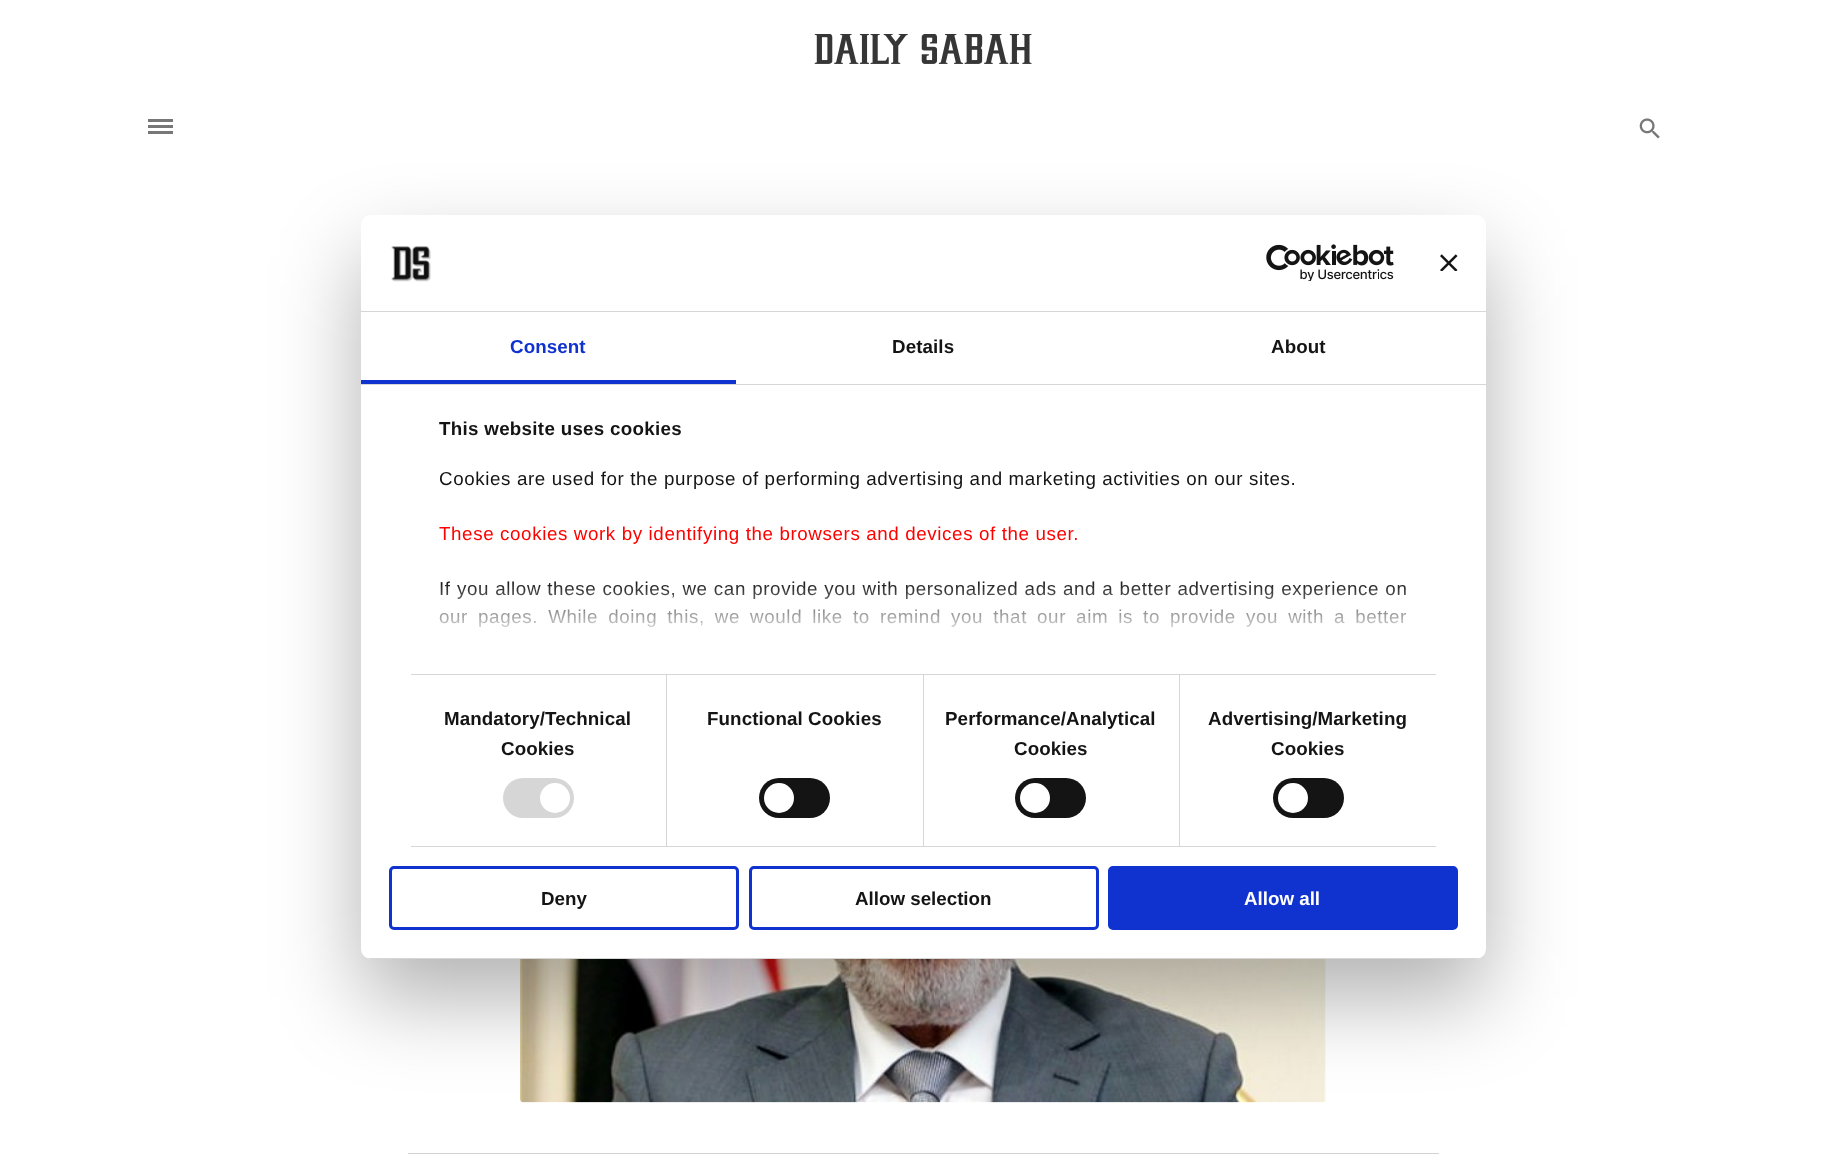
<svg xmlns="http://www.w3.org/2000/svg" width="1846" height="1174">
<style>
.a{font:bold 18.75px Liberation Sans;letter-spacing:0.1px;fill:#1032cf}
.b{font:bold 18.75px Liberation Sans;letter-spacing:0.1px;fill:#141414}
.c{font:bold 18.75px Liberation Sans;letter-spacing:0.3px;fill:#141414}
.d{font:18.75px Liberation Sans;letter-spacing:0.62px;fill:#141414}
.e{font:18.75px Liberation Sans;letter-spacing:0.62px;fill:#f00}
.f{font:bold 18.75px Liberation Sans;fill:#141414}
.g{font:bold 18.75px Liberation Sans;fill:#fff}
</style>
<defs>
<clipPath id="clip1"><rect x="361" y="215" width="1125" height="744" rx="10"/></clipPath>
<linearGradient id="g1" gradientUnits="userSpaceOnUse" x1="911" y1="674" x2="911" y2="581"><stop offset="0" stop-color="#fff"/><stop offset="0.5" stop-color="#fff" stop-opacity="0.8"/><stop offset="1" stop-color="#fff" stop-opacity="0"/></linearGradient>
</defs>
<rect width="100%" height="100%" fill="#fff"/>
<image href="1.png" x="814" y="34" width="218" height="30"/>
<path fill="#777" d="M148 131h25v3H148z"/>
<path fill="#777" d="M148 119h25v3H148z"/>
<path fill="#777" d="M148 125h25v3H148z"/>
<image href="2.png" x="1639" y="118" width="21" height="21"/>
<image href="6.png" x="520" y="959" width="806" height="144"/>
<rect fill="#0000004d" filter="blur(42.5px)" x="361" y="255" width="1125" height="744" rx="10"/>
<rect fill="#fff" x="361" y="215" width="1125" height="744" rx="10"/>
<path fill="#d6d6d6" d="M361 311h1125v1H361z"/>
<image href="3.png" x="391" y="246" width="40" height="36"/>
<image href="4.png" x="1266" y="244" width="128" height="37"/>
<image href="5.png" x="1440" y="254" width="18" height="17"/>
<path fill="#d6d6d6" d="M361 384h1125v1H361z"/>
<path fill="#1032cf" d="M361 380h375v4H361z"/>
<path fill="#d6d6d6" d="M411 674h1025v1H411z"/>
<path fill="#d6d6d6" d="M411 846h1025v1H411z"/>
<path fill="#d6d6d6" d="M666 675h1v171H666z"/>
<rect fill="#d6d6d6" x="503" y="778" width="71" height="40" rx="20"/>
<circle fill="#fff" cx="555" cy="798" r="15"/>
<path fill="#d6d6d6" d="M923 675h1v171H923z"/>
<rect fill="#141414" x="759" y="778" width="71" height="40" rx="20"/>
<circle fill="#fff" cx="779" cy="798" r="15"/>
<path fill="#d6d6d6" d="M1179 675h1v171H1179z"/>
<rect fill="#141414" x="1015" y="778" width="71" height="40" rx="20"/>
<circle fill="#fff" cx="1035" cy="798" r="15"/>
<rect fill="#141414" x="1273" y="778" width="71" height="40" rx="20"/>
<circle fill="#fff" cx="1293" cy="798" r="15"/>
<g clip-path="url(#clip1)">
<path fill="#d6d6d6" d="M361 958h1125v1H361z"/>
</g>
<rect fill="none" stroke="#1032cf" stroke-width="3" x="390.5" y="867.5" width="347" height="61" rx="3.5"/>
<rect fill="none" stroke="#1032cf" stroke-width="3" x="750.5" y="867.5" width="347" height="61" rx="3.5"/>
<rect fill="#1032cf" stroke="#1032cf" stroke-width="3" x="1109.5" y="867.5" width="347" height="61" rx="3.5"/>
<path fill="#d3d3d3" d="M408 1153h1031v1H408z"/>
<text class="a" x="510" y="353">Consent</text>
<text class="b" x="892" y="353">Details</text>
<text class="b" x="1271" y="353">About</text>
<text class="c" x="439" y="435">This website uses cookies</text>
<text class="d" x="439" y="485">Cookies are used for the purpose of performing advertising and marketing activities on our sites.</text>
<text class="e" x="439" y="540">These cookies work by identifying the browsers and devices of the user.</text>
<text class="d" x="439" y="595" word-spacing="0.4">If you allow these cookies, we can provide you with personalized ads and a better advertising experience on</text>
<text class="d" x="439" y="623" word-spacing="4.25">our pages. While doing this, we would like to remind you that our aim is to provide you with a better</text>
<path fill="url(#g1)" d="M439 582h968v45H439z"/>
<text class="b" x="444" y="725">Mandatory/Technical</text>
<text class="b" x="501" y="755">Cookies</text>
<text class="b" x="707" y="725">Functional Cookies</text>
<text class="b" x="945" y="725">Performance/Analytical</text>
<text class="b" x="1014" y="755">Cookies</text>
<text class="b" x="1208" y="725">Advertising/Marketing</text>
<text class="b" x="1271" y="755">Cookies</text>
<text class="f" x="541" y="905">Deny</text>
<text class="f" x="855" y="905">Allow selection</text>
<text class="g" x="1244" y="905">Allow all</text>
</svg>
